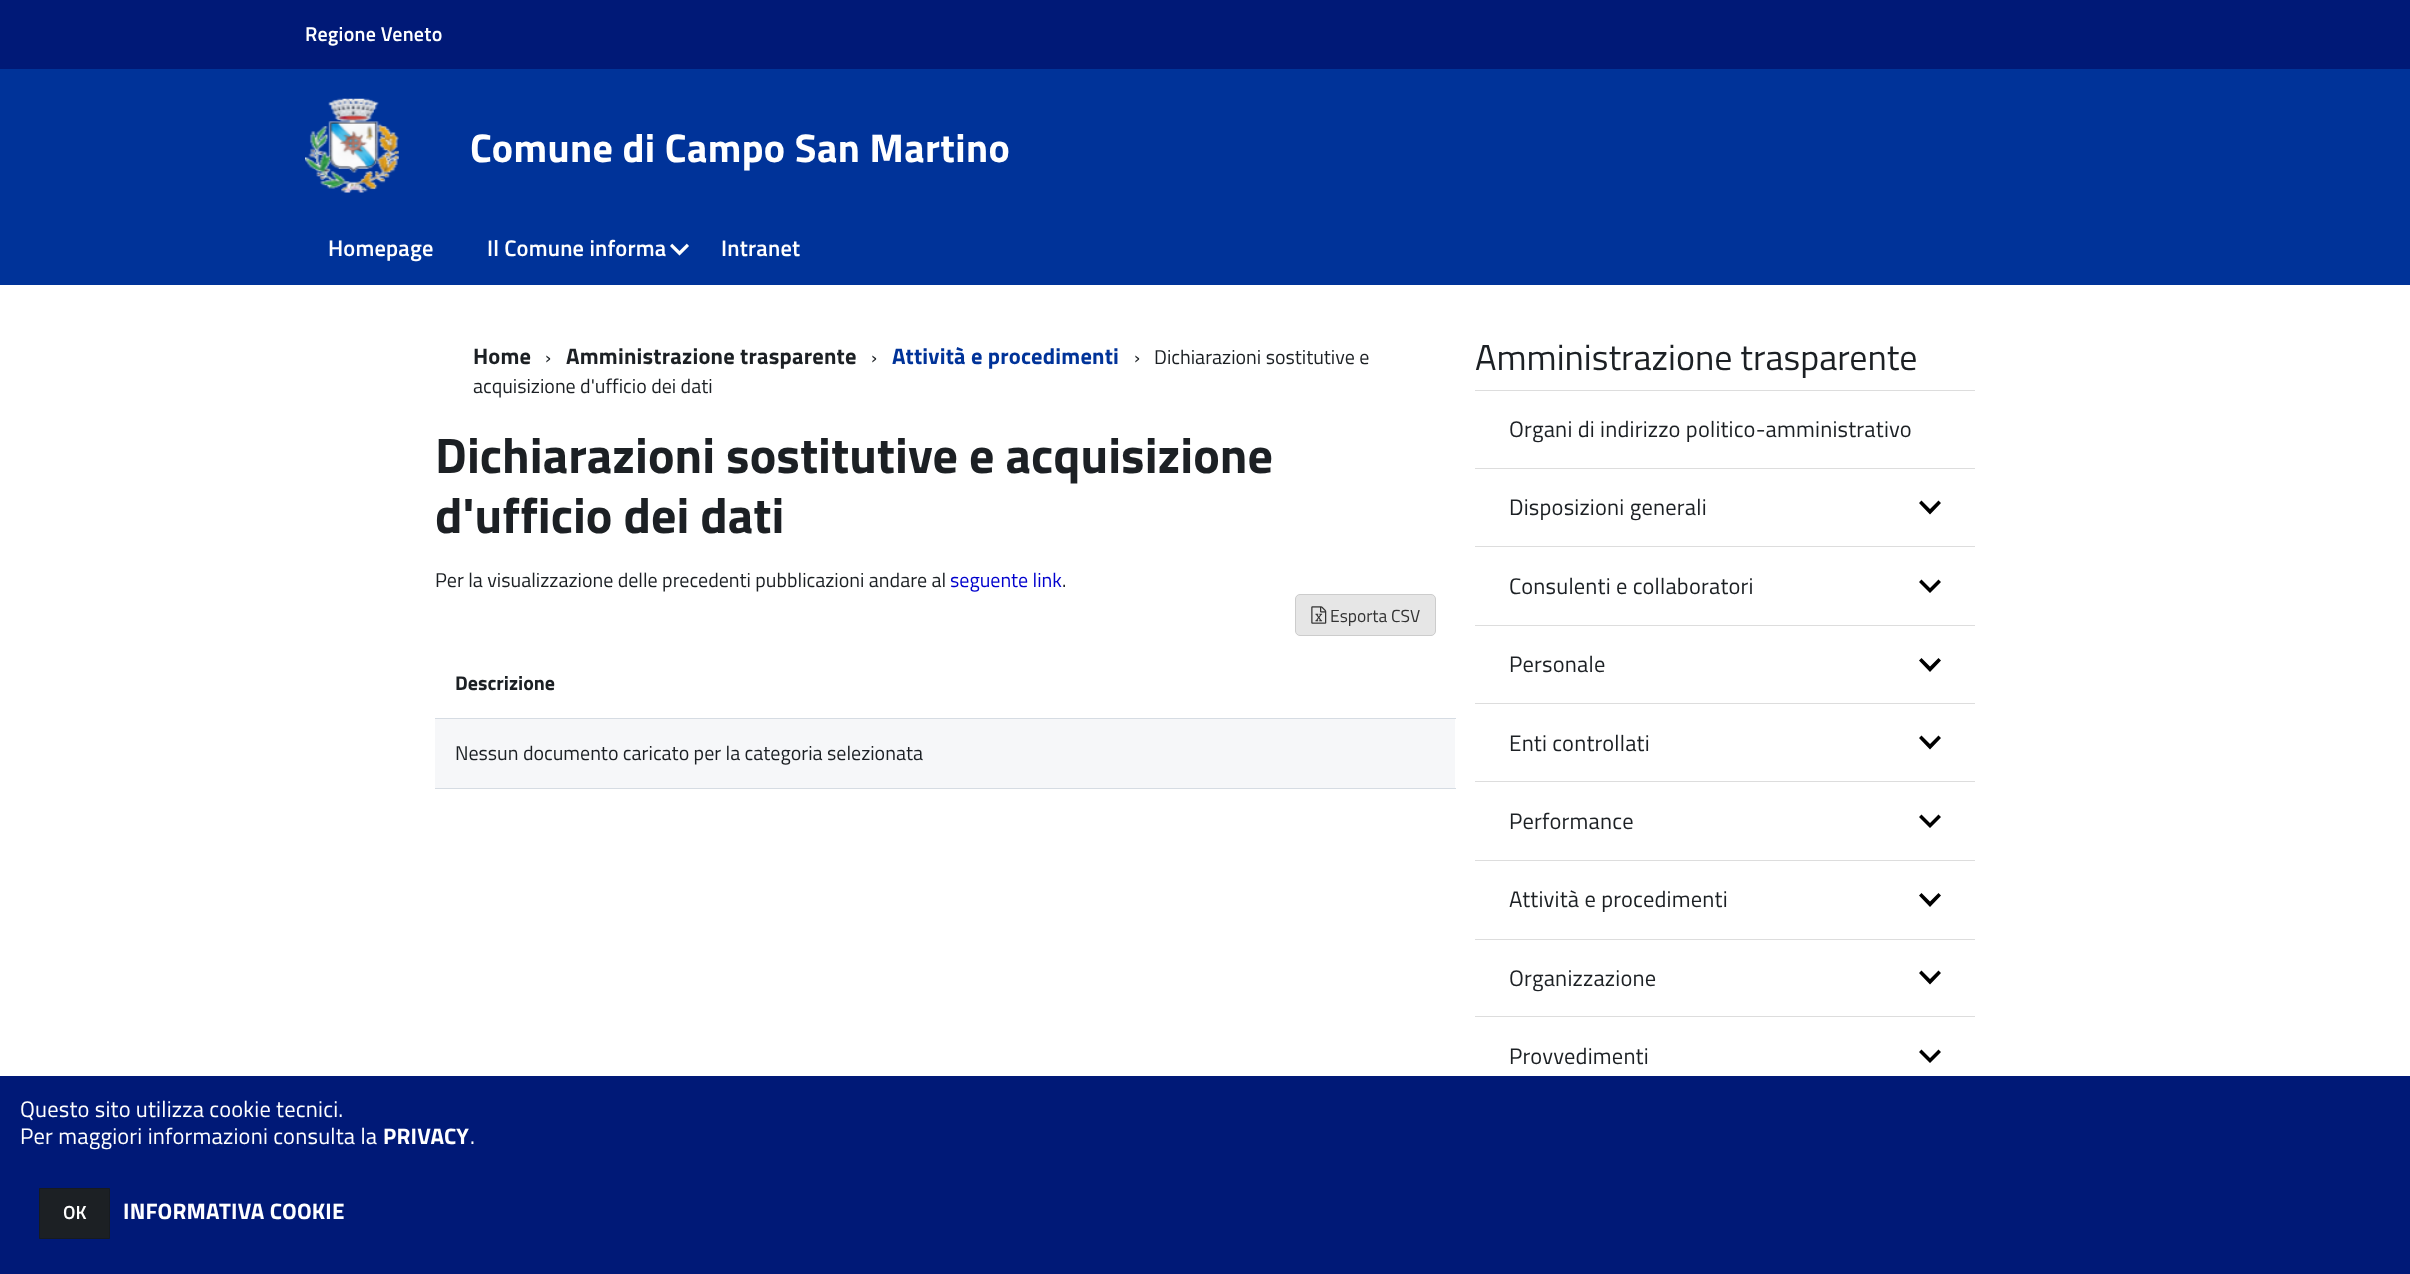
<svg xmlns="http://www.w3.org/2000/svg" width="2410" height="1274">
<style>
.a{font:600 20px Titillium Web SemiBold;letter-spacing:0.25px;fill:#fff}
.b{font:bold 40px Titillium Web;letter-spacing:0.4px;fill:#fff}
.c{font:600 22.5px Titillium Web SemiBold;letter-spacing:0.2px;fill:#fff}
.d{font:19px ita;letter-spacing:0.2px;fill:#fff}
.e{font:bold 22.5px Titillium Web;letter-spacing:0.2px;fill:#1c2024}
.f{font:20px Titillium Web;fill:#1c2024}
.g{font:bold 22.5px Titillium Web;letter-spacing:0.2px;fill:#039}
.h{font:bold 50px Titillium Web;fill:#1c2024}
.i{font:20px Titillium Web;fill:#0000cd}
.j{font:17.5px Titillium Web;fill:#333}
.k{font:bold 20px Titillium Web;fill:#1c2024}
.l{font:36px Titillium Web;fill:#1c2024}
.m{font:22.5px Titillium Web;letter-spacing:0.2px;fill:#1c2024}
.n{font:22.5px Titillium Web;letter-spacing:0.2px;fill:#fff}
.o{font:bold 22.5px Titillium Web;letter-spacing:0.2px;fill:#fff}
.p{font:600 19px Titillium Web SemiBold;fill:#fff}
</style>
<rect width="100%" height="100%" fill="#fff"/>
<path fill="#001977" d="M0 0h2410v69H0z"/>
<path fill="#039" d="M0 69h2410v216H0z"/>
<image href="1.png" x="305" y="98" width="94" height="95"/>
<rect fill="#e6e6e6" stroke="#ccc" x="1295.5" y="594.5" width="140" height="41" rx="4.5"/>
<image href="2.png" x="1311" y="606" width="16" height="18"/>
<path fill="#d6dce3" d="M435 718h1021v1H435z"/>
<path fill="#f6f7f9" d="M435 719h1020v69H435z"/>
<path fill="#d6dce3" d="M435 788h1021v1H435z"/>
<path fill="#ddd" d="M1475 390h500v1H1475z"/>
<path fill="#ddd" d="M1475 468h500v1H1475z"/>
<path fill="#000" d="M1921.5 500.5l-2.5 2.5l11 11.5l11-11.5l-2.5-2.5l-8.5 8.5z"/>
<path fill="#ddd" d="M1475 546h500v1H1475z"/>
<path fill="#000" d="M1921.5 579.5l-2.5 2.5l11 11l11-11l-2.5-2.5l-8.5 8.5z"/>
<path fill="#ddd" d="M1475 625h500v1H1475z"/>
<path fill="#000" d="M1921.5 658l-2.5 2.5l11 11.5l11-11.5l-2.5-2.5l-8.5 8.5z"/>
<path fill="#ddd" d="M1475 703h500v1H1475z"/>
<path fill="#000" d="M1921.5 735.5l-2.5 2.5l11 11.5l11-11.5l-2.5-2.5l-8.5 8.5z"/>
<path fill="#ddd" d="M1475 781h500v1H1475z"/>
<path fill="#000" d="M1921.5 814.5l-2.5 2.5l11 11l11-11l-2.5-2.5l-8.5 8.5z"/>
<path fill="#ddd" d="M1475 860h500v1H1475z"/>
<path fill="#000" d="M1921.5 893l-2.5 2.5l11 11.5l11-11.5l-2.5-2.5l-8.5 8.5z"/>
<path fill="#ddd" d="M1475 939h500v1H1475z"/>
<path fill="#000" d="M1921.5 970.5l-2.5 2.5l11 11.5l11-11.5l-2.5-2.5l-8.5 8.5z"/>
<path fill="#ddd" d="M1475 1016h500v1H1475z"/>
<path fill="#000" d="M1921.5 1049.5l-2.5 2.5l11 11l11-11l-2.5-2.5l-8.5 8.5z"/>
<path fill="#001977" d="M0 1076h2410v198H0z"/>
<path fill="#1c2024" stroke="#171b1f" d="M39.5 1188.5h70v50H39.5z"/>
<text class="a" x="305" y="41">Regione Veneto</text>
<text class="b" x="470" y="162">Comune di Campo San Martino</text>
<text class="c" x="328" y="256">Homepage</text>
<text class="c" x="487" y="256">Il Comune informa</text>
<text class="d" x="670" y="258">⏶</text>
<text class="c" x="721" y="256">Intranet</text>
<text class="e" x="473" y="364">Home</text>
<text class="f" x="545" y="364">›</text>
<text class="e" x="566" y="364">Amministrazione trasparente</text>
<text class="f" x="871" y="364">›</text>
<text class="g" x="892" y="364">Attività e procedimenti</text>
<text class="f" x="1134" y="364">›</text>
<text class="f" x="1154" y="364">Dichiarazioni sostitutive e</text>
<text class="f" x="473" y="393">acquisizione d'ufficio dei dati</text>
<text class="h" x="435" y="473">Dichiarazioni sostitutive e acquisizione</text>
<text class="h" x="435" y="533">d'ufficio dei dati</text>
<text class="f" x="435" y="587">Per la visualizzazione delle precedenti pubblicazioni andare al</text>
<text class="i" x="950" y="587">seguente link</text>
<text class="f" x="1062" y="587">.</text>
<text class="j" x="1330" y="622">Esporta CSV</text>
<text class="k" x="455" y="690">Descrizione</text>
<text class="f" x="455" y="760">Nessun documento caricato per la categoria selezionata</text>
<text class="l" x="1475" y="370">Amministrazione trasparente</text>
<text class="m" x="1509" y="437">Organi di indirizzo politico-amministrativo</text>
<text class="m" x="1509" y="515">Disposizioni generali</text>
<text class="m" x="1509" y="594">Consulenti e collaboratori</text>
<text class="m" x="1509" y="672">Personale</text>
<text class="m" x="1509" y="751">Enti controllati</text>
<text class="m" x="1509" y="829">Performance</text>
<text class="m" x="1509" y="907">Attività e procedimenti</text>
<text class="m" x="1509" y="986">Organizzazione</text>
<text class="m" x="1509" y="1064">Provvedimenti</text>
<text class="n" x="20" y="1117">Questo sito utilizza cookie tecnici.</text>
<text class="n" x="20" y="1144">Per maggiori informazioni consulta la</text>
<text class="o" x="383" y="1144">PRIVACY</text>
<text class="n" x="470" y="1144">.</text>
<text class="p" x="63" y="1219">OK</text>
<text class="o" x="123" y="1219">INFORMATIVA COOKIE</text>
</svg>
